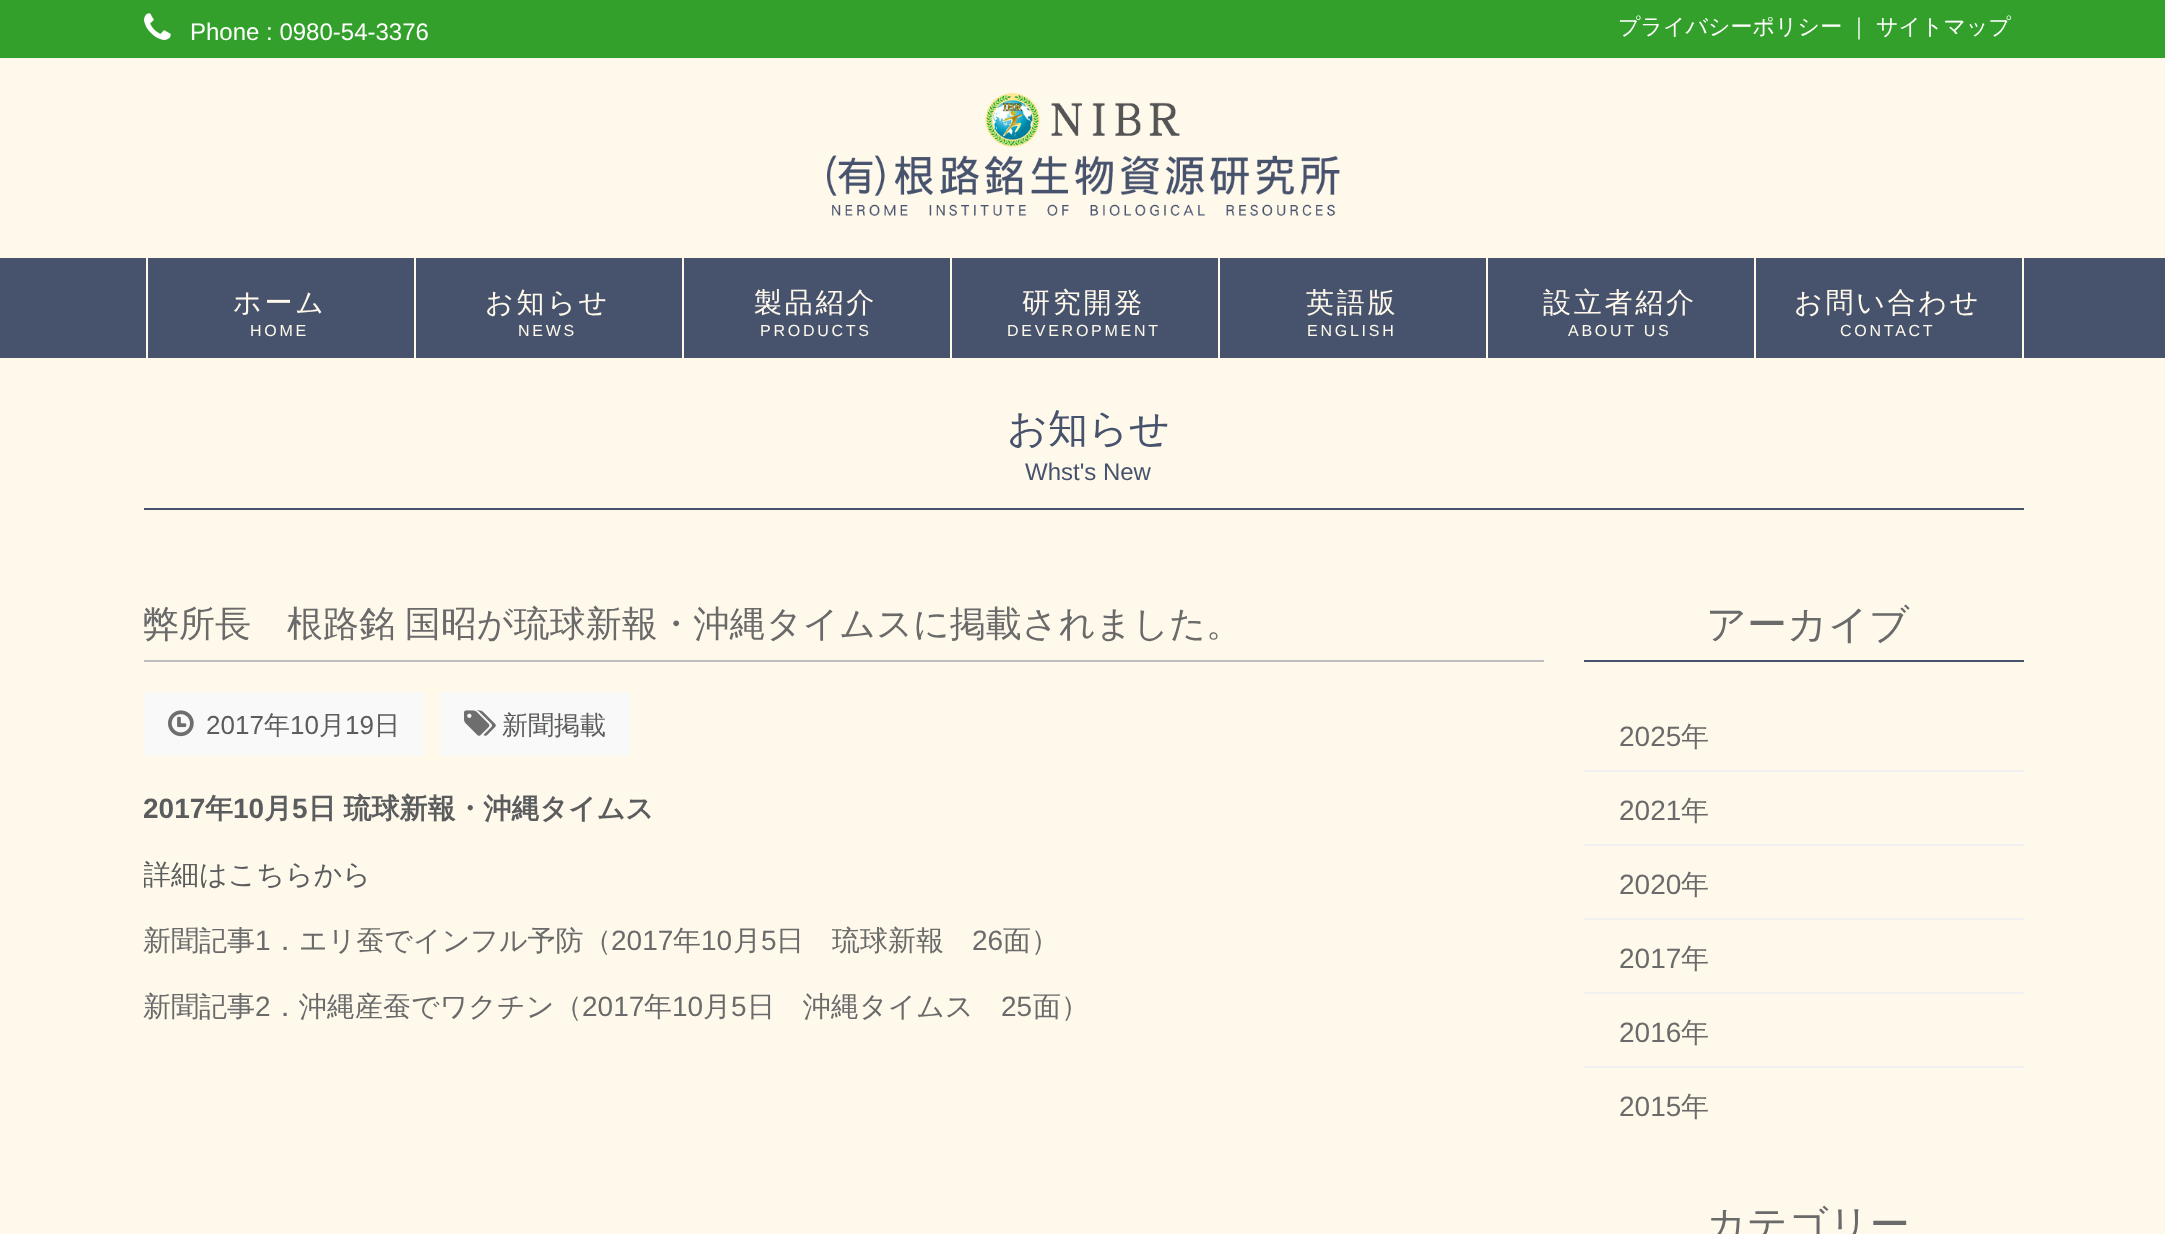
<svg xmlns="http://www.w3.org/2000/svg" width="2165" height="1234">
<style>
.a{font:24px Liberation Sans;fill:#fff}
.b{font:500 22px WenQuanYi Zen Hei;fill:#fff}
.c{font:500 28px WenQuanYi Zen Hei;letter-spacing:2.75px;fill:#fff9ec}
.d{font:16px Liberation Sans;letter-spacing:2.75px;fill:#fff9ec}
.e{font:500 40px WenQuanYi Zen Hei;fill:#47536d}
.f{font:24px Liberation Sans;fill:#47536d}
.g{font:500 36px WenQuanYi Zen Hei;fill:#6a6a6a}
.h{font:26px Liberation Sans;fill:#5a5c5d}
.i{font:500 26px WenQuanYi Zen Hei;fill:#5a5c5d}
.j{font:bold 28px Liberation Sans;fill:#5a5c5d}
.k{font:bold 28px WenQuanYi Zen Hei;fill:#5a5c5d}
.l{font:500 28px WenQuanYi Zen Hei;fill:#5a5c5d}
.m{font:500 28px WenQuanYi Zen Hei;fill:#6a6a6a}
.n{font:28px Liberation Sans;fill:#6a6a6a}
.o{font:500 40px WenQuanYi Zen Hei;fill:#6a6a6a}
</style>
<defs>
<clipPath id="clip1"><path d="M144 786h1400v264H144z"/></clipPath>
</defs>
<rect width="100%" height="100%" fill="#fff9ec"/>
<path fill="#33a02b" d="M0 0h2165v58H0z"/>
<image href="1.png" x="144" y="13" width="27" height="27"/>
<image href="2.png" x="827" y="92" width="513" height="124"/>
<path fill="#47536d" d="M0 258h2165v100H0z"/>
<path fill="#fff9ec" d="M2022 258h2v100H2022z"/>
<path fill="#fff9ec" d="M146 258h2v100H146z"/>
<path fill="#fff9ec" d="M414 258h2v100H414z"/>
<path fill="#fff9ec" d="M682 258h2v100H682z"/>
<path fill="#fff9ec" d="M950 258h2v100H950z"/>
<path fill="#fff9ec" d="M1218 258h2v100H1218z"/>
<path fill="#fff9ec" d="M1486 258h2v100H1486z"/>
<path fill="#fff9ec" d="M1754 258h2v100H1754z"/>
<path fill="#47536d" d="M144 508h1880v2H144z"/>
<path fill="#bebebe" d="M144 660h1400v2H144z"/>
<rect fill="#f9f9f9" x="144" y="692" width="280" height="64" rx="4"/>
<image href="3.png" x="168" y="710" width="26" height="27"/>
<rect fill="#f9f9f9" x="440" y="692" width="190" height="64" rx="4"/>
<image href="4.png" x="464" y="710" width="32" height="26"/>
<path fill="#47536d" d="M1584 660h440v2H1584z"/>
<path fill="#f0f0f0" d="M1584 770h440v2H1584z"/>
<path fill="#f0f0f0" d="M1584 844h440v2H1584z"/>
<path fill="#f0f0f0" d="M1584 918h440v2H1584z"/>
<path fill="#f0f0f0" d="M1584 992h440v2H1584z"/>
<path fill="#f0f0f0" d="M1584 1066h440v2H1584z"/>
<text class="a" x="190" y="40">Phone : 0980-54-3376</text>
<text class="b" x="1618" y="34">プライバシーポリシー</text>
<text class="b" x="1848" y="34">｜</text>
<text class="b" x="1876" y="34">サイトマップ</text>
<text class="c" x="233" y="312">ホーム</text>
<text class="d" x="250" y="336">HOME</text>
<text class="c" x="485" y="312">お知らせ</text>
<text class="d" x="518" y="336">NEWS</text>
<text class="c" x="754" y="312">製品紹介</text>
<text class="d" x="760" y="336">PRODUCTS</text>
<text class="c" x="1022" y="312">研究開発</text>
<text class="d" x="1007" y="336">DEVEROPMENT</text>
<text class="c" x="1306" y="312">英語版</text>
<text class="d" x="1307" y="336">ENGLISH</text>
<text class="c" x="1543" y="312">設立者紹介</text>
<text class="d" x="1568" y="336">ABOUT US</text>
<text class="c" x="1794" y="312">お問い合わせ</text>
<text class="d" x="1840" y="336">CONTACT</text>
<text class="e" x="1007" y="442">お知らせ</text>
<text class="f" x="1025" y="480">Whst's New</text>
<text class="g" x="143" y="636" word-spacing="-1">弊所長　根路銘 国昭が琉球新報・沖縄タイムスに掲載されました。</text>
<text class="h" x="206" y="734">2017</text>
<text class="i" x="264" y="734">年</text>
<text class="h" x="290" y="734">10</text>
<text class="i" x="319" y="734">月</text>
<text class="h" x="345" y="734">19</text>
<text class="i" x="374" y="734">日</text>
<text class="i" x="502" y="734">新聞掲載</text>
<text class="j" x="143" y="818">2017</text>
<text class="k" x="205" y="818">年</text>
<text class="j" x="233" y="818">10</text>
<text class="k" x="264" y="818">月</text>
<text class="j" x="292" y="818">5</text>
<text class="k" x="308" y="818" word-spacing="-1">日 琉球新報・沖縄タイムス</text>
<g clip-path="url(#clip1)">
<text class="l" x="143" y="884">詳細はこちらから</text>
</g>
<text class="m" x="143" y="950">新聞記事</text>
<text class="n" x="255" y="950">1</text>
<text class="m" x="271" y="950">．エリ蚕でインフル予防（</text>
<text class="n" x="611" y="950">2017</text>
<text class="m" x="673" y="950">年</text>
<text class="n" x="701" y="950">10</text>
<text class="m" x="733" y="950">月</text>
<text class="n" x="761" y="950">5</text>
<text class="m" x="776" y="950">日　琉球新報</text>
<text class="n" x="972" y="950">26</text>
<text class="m" x="1003" y="950">面）</text>
<text class="m" x="143" y="1016">新聞記事</text>
<text class="n" x="255" y="1016">2</text>
<text class="m" x="271" y="1016">．沖縄産蚕でワクチン（</text>
<text class="n" x="582" y="1016">2017</text>
<text class="m" x="644" y="1016">年</text>
<text class="n" x="672" y="1016">10</text>
<text class="m" x="703" y="1016">月</text>
<text class="n" x="731" y="1016">5</text>
<text class="m" x="747" y="1016">日　沖縄タイムス</text>
<text class="n" x="1001" y="1016">25</text>
<text class="m" x="1033" y="1016">面）</text>
<text class="o" x="1706" y="638">アーカイブ</text>
<text class="n" x="1619" y="746">2025</text>
<text class="m" x="1681" y="746">年</text>
<text class="n" x="1619" y="820">2021</text>
<text class="m" x="1681" y="820">年</text>
<text class="n" x="1619" y="894">2020</text>
<text class="m" x="1681" y="894">年</text>
<text class="n" x="1619" y="968">2017</text>
<text class="m" x="1681" y="968">年</text>
<text class="n" x="1619" y="1042">2016</text>
<text class="m" x="1681" y="1042">年</text>
<text class="n" x="1619" y="1116">2015</text>
<text class="m" x="1681" y="1116">年</text>
<text class="o" x="1706" y="1238">カテゴリー</text>
</svg>
